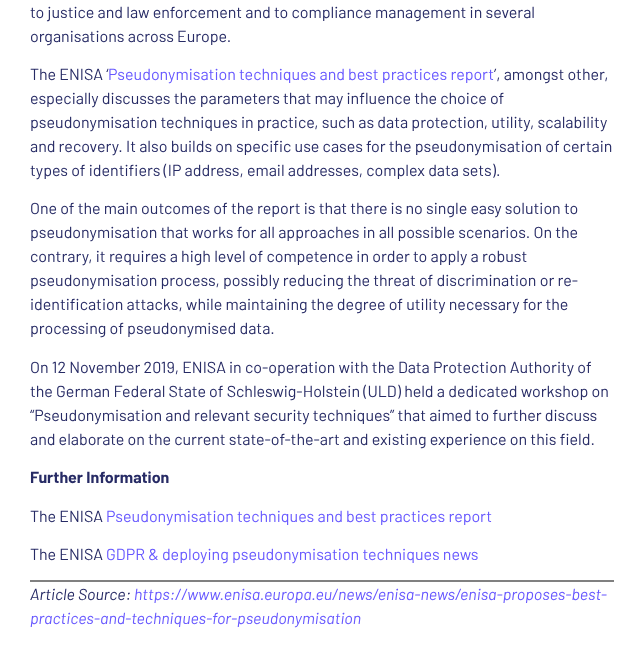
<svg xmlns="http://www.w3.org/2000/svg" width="644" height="645">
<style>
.a{font:16px Barlow;fill:#272b65}
.b{font:16px Barlow;fill:#6758ff}
.c{font:bold 16px Barlow;fill:#272b65}
.d{font:italic 16px Barlow;fill:#272b65}
.e{font:italic 16px Barlow;fill:#6758ff}
</style>
<rect width="100%" height="100%" fill="#fff"/>
<path fill="#808080" d="M30 580h584v2H30z"/>
<text class="a" x="30" y="18">to justice and law enforcement and to compliance management in several</text>
<text class="a" x="30" y="42">organisations across Europe.</text>
<text class="a" x="30" y="80">The ENISA ‘</text>
<text class="b" x="108" y="80">Pseudonymisation techniques and best practices report</text>
<text class="a" x="494" y="80">’, amongst other,</text>
<text class="a" x="30" y="104">especially discusses the parameters that may influence the choice of</text>
<text class="a" x="30" y="128">pseudonymisation techniques in practice, such as data protection, utility, scalability</text>
<text class="a" x="30" y="152">and recovery. It also builds on specific use cases for the pseudonymisation of certain</text>
<text class="a" x="30" y="176">types of identifiers (IP address, email addresses, complex data sets).</text>
<text class="a" x="30" y="214">One of the main outcomes of the report is that there is no single easy solution to</text>
<text class="a" x="30" y="238">pseudonymisation that works for all approaches in all possible scenarios. On the</text>
<text class="a" x="30" y="262">contrary, it requires a high level of competence in order to apply a robust</text>
<text class="a" x="30" y="286">pseudonymisation process, possibly reducing the threat of discrimination or re-</text>
<text class="a" x="30" y="310">identification attacks, while maintaining the degree of utility necessary for the</text>
<text class="a" x="30" y="334">processing of pseudonymised data.</text>
<text class="a" x="30" y="373">On 12 November 2019, ENISA in co-operation with the Data Protection Authority of</text>
<text class="a" x="30" y="397">the German Federal State of Schleswig-Holstein (ULD) held a dedicated workshop on</text>
<text class="a" x="30" y="421">“Pseudonymisation and relevant security techniques” that aimed to further discuss</text>
<text class="a" x="30" y="445">and elaborate on the current state-of-the-art and existing experience on this field.</text>
<text class="c" x="30" y="483">Further Information</text>
<text class="a" x="30" y="522">The ENISA</text>
<text class="b" x="106" y="522">Pseudonymisation techniques and best practices report</text>
<text class="a" x="30" y="560">The ENISA</text>
<text class="b" x="106" y="560">GDPR &amp; deploying pseudonymisation techniques news</text>
<text class="d" x="30" y="600">Article Source:</text>
<text class="e" x="134" y="600">https://www.enisa.europa.eu/news/enisa-news/enisa-proposes-best-</text>
<text class="e" x="30" y="624">practices-and-techniques-for-pseudonymisation</text>
</svg>
